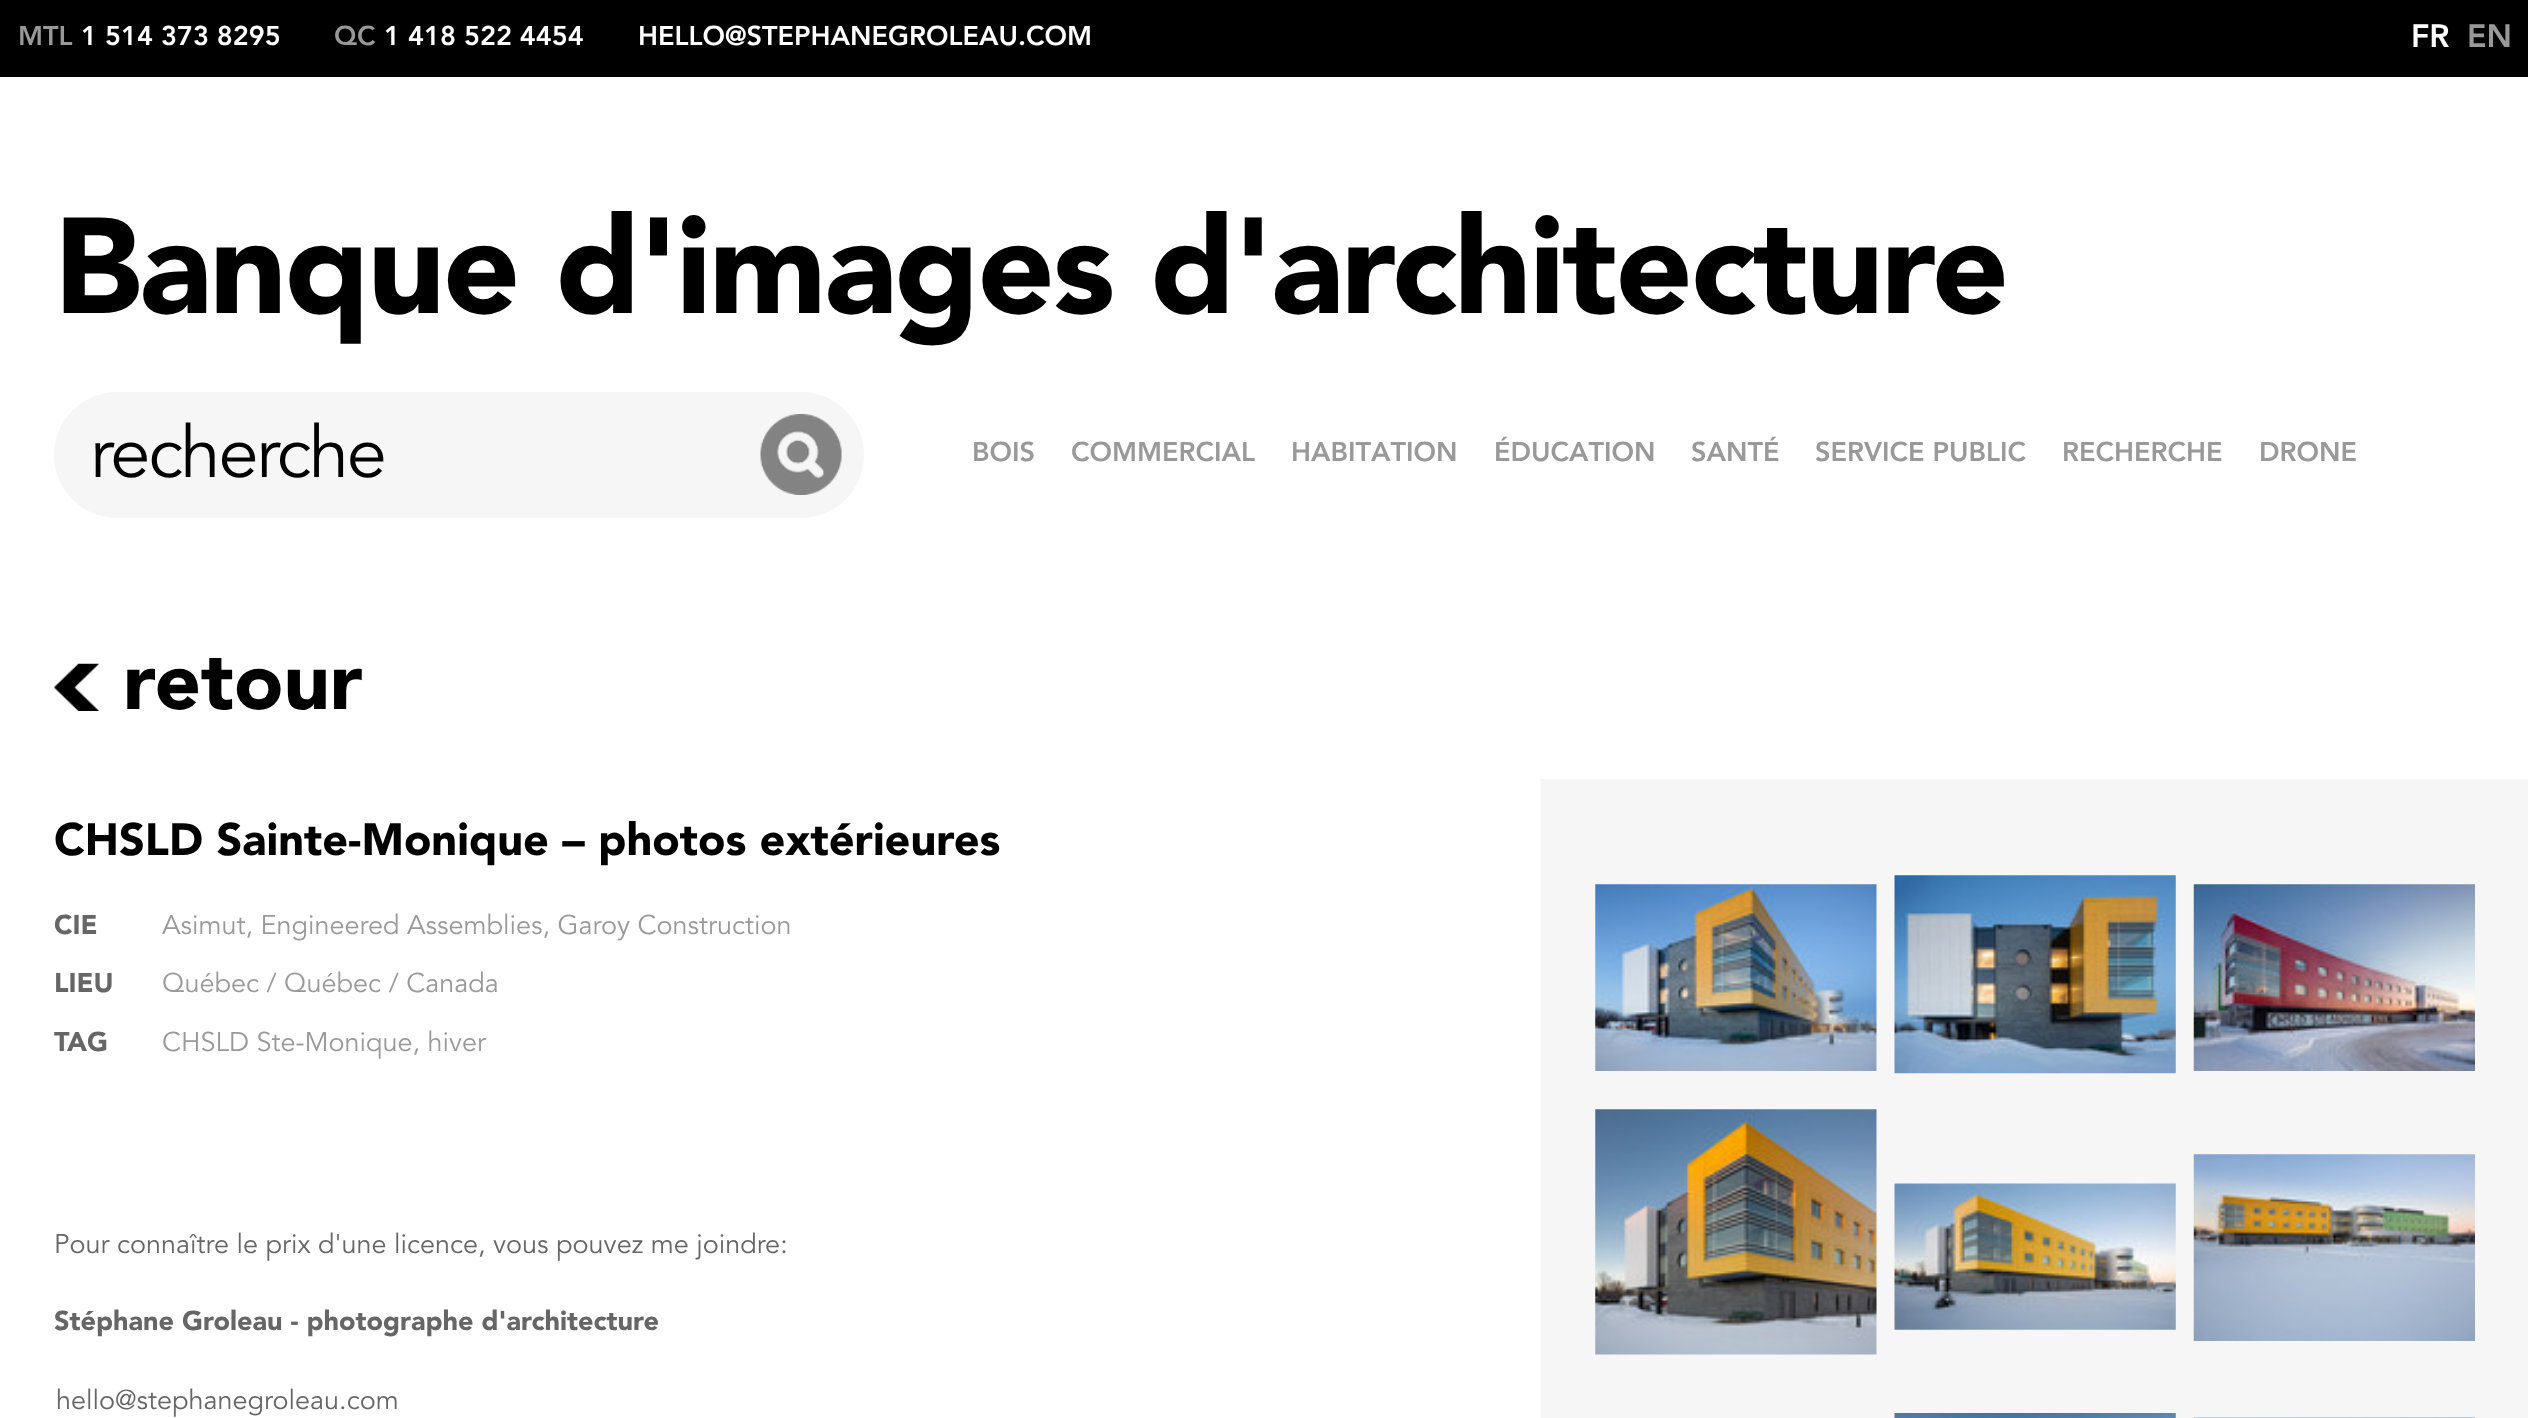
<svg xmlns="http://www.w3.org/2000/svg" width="2528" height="1418">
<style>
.a{font:900 27px Avenir;fill:#999}
.b{font:900 27px Avenir;fill:#fff}
.c{font:900 32px Avenir;fill:#fff}
.d{font:900 32px Avenir;fill:#999}
.e{font:900 135px 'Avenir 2';letter-spacing:-2.25px;fill:#000}
.f{font:72px Avenir;letter-spacing:-2.25px;fill:#000}
.g{font:900 81px 'Avenir 2';fill:#000}
.h{font:900 45px 'Avenir 2';fill:#000}
.i{font:900 27px 'Avenir 2';fill:#666}
.j{font:27px Avenir;fill:#999}
.k{font:27px Avenir;fill:#666}
</style>
<rect width="100%" height="100%" fill="#fff"/>
<path fill="#000" d="M0 0h2528v77H0z"/>
<rect fill="#f6f6f6" x="54" y="392" width="810" height="126" rx="63"/>
<image href="1.png" x="760" y="414" width="82" height="81"/>
<image href="2.png" x="54" y="663" width="45" height="48"/>
<path fill="#f6f6f6" d="M1541 779h987v639H1541z"/>
<image href="3.png" x="1595" y="884" width="282" height="187"/>
<image href="4.png" x="1894" y="875" width="282" height="199"/>
<image href="5.png" x="2193" y="884" width="282" height="187"/>
<image href="6.png" x="1595" y="1109" width="282" height="246"/>
<image href="7.png" x="1894" y="1183" width="282" height="147"/>
<image href="8.png" x="2193" y="1154" width="282" height="187"/>
<image href="9.png" x="1894" y="1413" width="282" height="5"/>
<image href="10.png" x="2193" y="1417" width="282" height="1"/>
<text class="a" x="18" y="45">MTL</text>
<text class="b" x="81" y="45">1 514 373 8295</text>
<text class="a" x="334" y="45">QC</text>
<text class="b" x="384" y="45">1 418 522 4454</text>
<text class="b" x="638" y="45">HELLO@STEPHANEGROLEAU.COM</text>
<text class="c" x="2411" y="47">FR</text>
<text class="d" x="2467" y="47">EN</text>
<text class="e" x="54" y="313">Banque d'images d'architecture</text>
<text class="f" x="90" y="477">recherche</text>
<text class="a" x="972" y="461">BOIS</text>
<text class="a" x="1071" y="461">COMMERCIAL</text>
<text class="a" x="1291" y="461">HABITATION</text>
<text class="a" x="1494" y="461">ÉDUCATION</text>
<text class="a" x="1691" y="461">SANTÉ</text>
<text class="a" x="1815" y="461">SERVICE PUBLIC</text>
<text class="a" x="2062" y="461">RECHERCHE</text>
<text class="a" x="2259" y="461">DRONE</text>
<text class="g" x="123" y="709">retour</text>
<text class="h" x="54" y="855">CHSLD Sainte-Monique – photos extérieures</text>
<text class="i" x="54" y="934">CIE</text>
<text class="j" x="162" y="934">Asimut, Engineered Assemblies, Garoy Construction</text>
<text class="i" x="54" y="992">LIEU</text>
<text class="j" x="162" y="992">Québec / Québec / Canada</text>
<text class="i" x="54" y="1051">TAG</text>
<text class="j" x="162" y="1051">CHSLD Ste-Monique, hiver</text>
<text class="k" x="54" y="1253">Pour connaître le prix d'une licence, vous pouvez me joindre:</text>
<text class="i" x="54" y="1330">Stéphane Groleau - photographe d'architecture</text>
<text class="k" x="56" y="1409">hello@stephanegroleau.com</text>
</svg>
